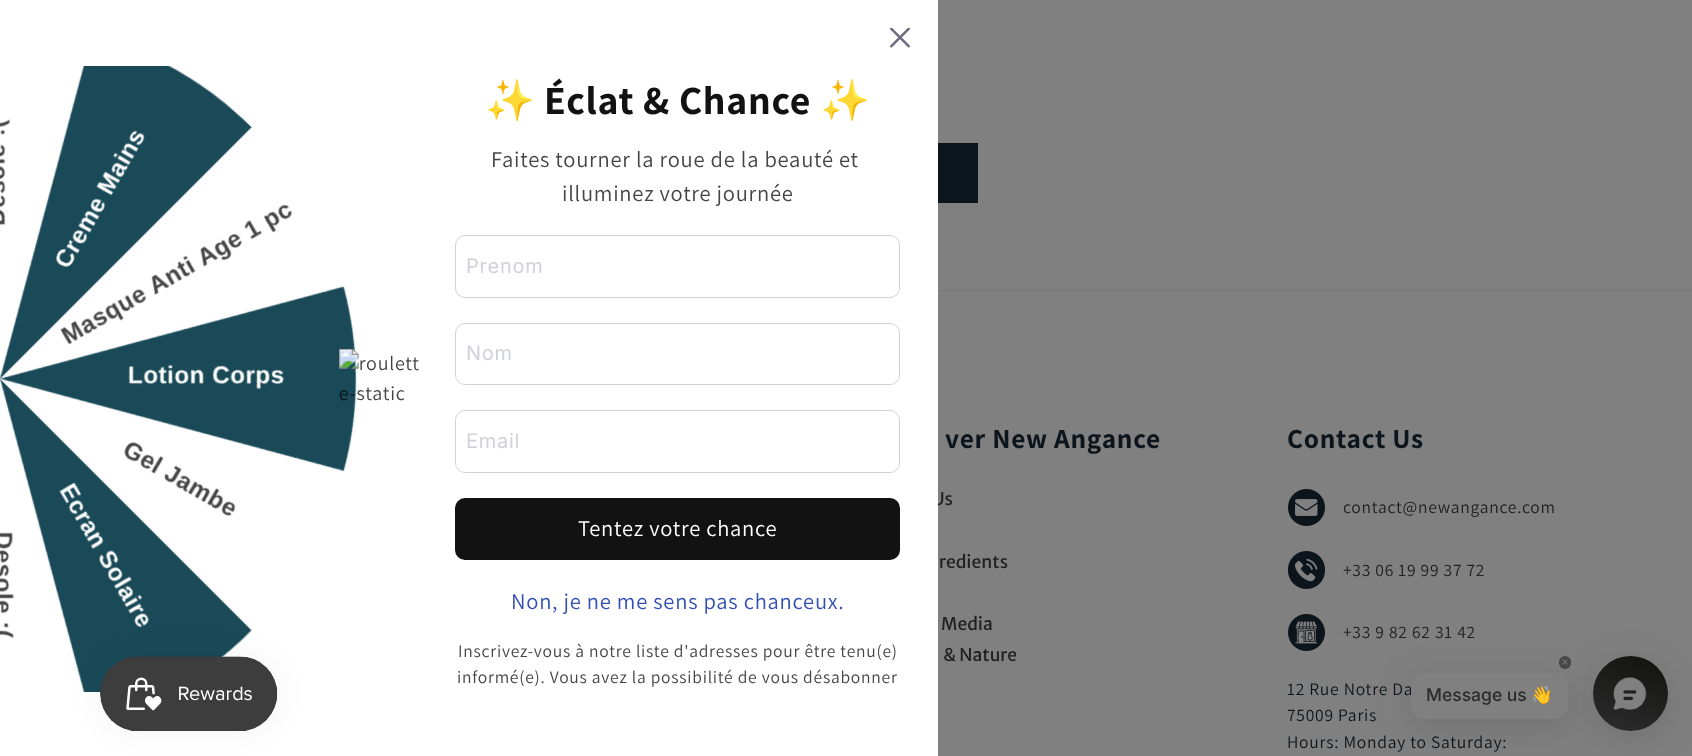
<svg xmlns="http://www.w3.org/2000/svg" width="1692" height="756">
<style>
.a{font:bold 27.5px Assistant;letter-spacing:0.75px;fill:#0d151c}
.b{font:17.5px Merriweather Sans;fill:#202020}
.c{font:20px Inter;letter-spacing:0.75px;fill:#d1d1db}
.d{font:22.5px Assistant;letter-spacing:0.75px;fill:#fff}
.e{font:17.5px Assistant;letter-spacing:0.75px;fill:#454545}
.f{font:22.5px Assistant;letter-spacing:0.75px;fill:#334fb4}
.g{font:22.5px Assistant;letter-spacing:0.75px;fill:#454545}
.h{font:bold 40px Noto Color Emoji;letter-spacing:0.75px;fill:#121212}
.i{font:bold 40px Assistant;letter-spacing:0.75px;fill:#121212}
.j{font:17.5px Assistant;letter-spacing:0.75px;fill:#202020}
.k{font:17.5px Assistant;letter-spacing:0.75px;fill:#0d151c}
.l{font:500 17.5px Inter;fill:#2b2b2b}
.m{font:17.5px Noto Color Emoji;fill:#2b2b2b}
</style>
<defs>
<linearGradient id="g1" gradientUnits="userSpaceOnUse" x1="1646" y1="649" x2="1614" y2="739"><stop offset="0" stop-color="#121211"/><stop offset="1" stop-color="#2d2d2d"/></linearGradient>
</defs>
<rect width="100%" height="100%" fill="#808080"/>
<path fill="#0d151c" d="M938 143h40v60H938z"/>
<path fill="#767676" d="M938 290h754v1H938z"/>
<image href="5.png" x="1288" y="489" width="37" height="37"/>
<image href="6.png" x="1288" y="551" width="37" height="38"/>
<image href="7.png" x="1288" y="614" width="37" height="37"/>
<rect fill="#32323833" filter="blur(18px)" x="1593" y="665" width="75" height="75" rx="37.5"/>
<circle fill="url(#g1)" cx="1630.5" cy="693.5" r="37.5"/>
<image href="9.png" x="1613" y="677" width="34" height="33"/>
<rect fill="#32323833" filter="blur(18px)" x="1411" y="681" width="157" height="47" rx="13"/>
<rect fill="#1818188c" x="1559" y="656" width="12" height="13" rx="6"/>
<image href="8.png" x="1562" y="659" width="6" height="6"/>
<text class="a" x="945" y="448">ver New Angance</text>
<text class="b" x="932" y="505">Us</text>
<path fill="#fff" d="M0 0h938v756H0z"/>
<image href="2.png" x="0" y="66" width="357" height="626"/>
<rect fill="#0000000d" filter="blur(15.5px)" x="100" y="656" width="178" height="75" rx="37.5"/>
<image href="4.png" x="100" y="656" width="178" height="75"/>
<image href="3.png" x="339" y="349" width="80" height="52"/>
<image href="1.png" x="890" y="28" width="20" height="20"/>
<rect fill="none" stroke="#d1d1db" x="455.5" y="410.5" width="444" height="62" rx="9.5"/>
<text class="c" x="466" y="448">Email</text>
<rect fill="none" stroke="#d1d1db" x="455.5" y="323.5" width="444" height="61" rx="9.5"/>
<text class="c" x="466" y="360">Nom</text>
<rect fill="none" stroke="#d1d1db" x="455.5" y="235.5" width="444" height="62" rx="9.5"/>
<text class="c" x="466" y="273">Prenom</text>
<rect fill="#121212" x="455" y="498" width="445" height="62" rx="10"/>
<text class="d" x="578" y="536">Tentez votre chance</text>
<text class="e" x="457" y="683">informé(e). Vous avez la possibilité de vous désabonner</text>
<text class="e" x="458" y="657">Inscrivez-vous à notre liste d'adresses pour être tenu(e)</text>
<text class="f" x="511" y="609">Non, je ne me sens pas chanceux.</text>
<text class="g" x="562" y="201">illuminez votre journée</text>
<text class="g" x="491" y="167">Faites tourner la roue de la beauté et</text>
<text class="h" x="820" y="114">✨</text>
<text class="i" x="544" y="114">Éclat &amp; Chance</text>
<text class="h" x="485" y="114">✨</text>
<text class="b" x="939" y="568">redients</text>
<text class="b" x="941" y="630">Media</text>
<text class="b" x="943" y="661">&amp; Nature</text>
<text class="a" x="1287" y="448">Contact Us</text>
<text class="j" x="1343" y="513">contact@newangance.com</text>
<text class="j" x="1343" y="576">+33 06 19 99 37 72</text>
<text class="j" x="1343" y="638">+33 9 82 62 31 42</text>
<text class="k" x="1287" y="695">12 Rue Notre Da</text>
<text class="k" x="1287" y="721">75009 Paris</text>
<text class="k" x="1287" y="748">Hours: Monday to Saturday:</text>
<rect fill="#808080" x="1411" y="673" width="157" height="46" rx="13"/>
<text class="l" x="1426" y="701">Message us</text>
<text class="m" x="1531" y="701">👋</text>
</svg>
